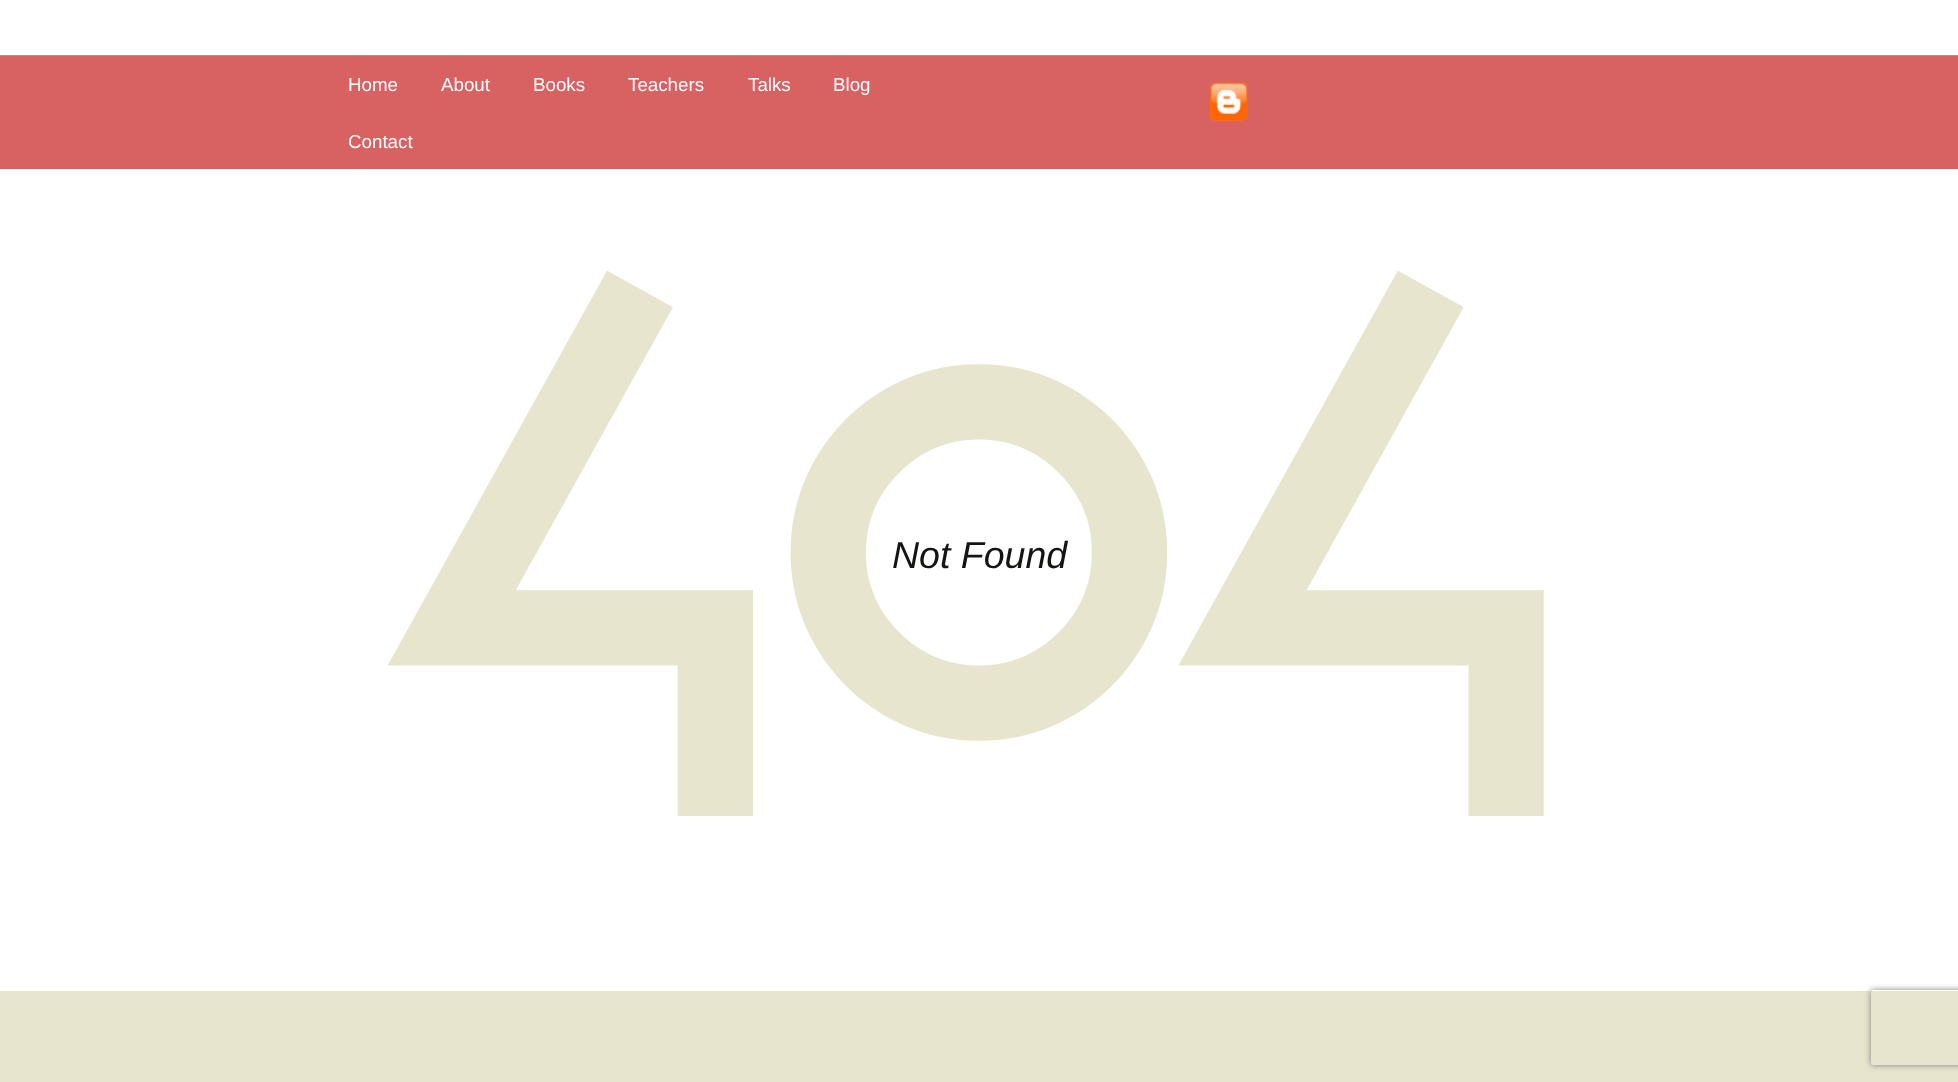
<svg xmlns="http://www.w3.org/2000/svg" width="1958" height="1082">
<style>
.a{font:18.75px Liberation Sans;fill:#fff}
.b{font:italic 37.5px Liberation Sans;fill:#141412}
</style>
<defs>
<clipPath id="clip1"><path d="M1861 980h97v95h-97zm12.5 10h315c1.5 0 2.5 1 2.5 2.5v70c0 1.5-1 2.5-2.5 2.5h-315c-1.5 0-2.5-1-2.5-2.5v-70c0-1.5 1-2.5 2.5-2.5z" clip-rule="evenodd"/></clipPath>
</defs>
<rect width="100%" height="100%" fill="#fff"/>
<path fill="#d86161" d="M0 56h1958v113H0z"/>
<path fill="#939c88" d="M0 55h1958v1H0z"/>
<image href="1.png" x="1210" y="82" width="38" height="40"/>
<path fill="#e8e5ce" d="M0 991h1958v91H0z"/>
<g clip-path="url(#clip1)">
<rect fill="#808080" filter="blur(3px)" x="1871" y="990" width="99" height="75" rx="2.5"/>
</g>
<text class="a" x="348" y="91">Home</text>
<text class="a" x="441" y="91">About</text>
<text class="a" x="533" y="91">Books</text>
<text class="a" x="628" y="91">Teachers</text>
<text class="a" x="748" y="91">Talks</text>
<text class="a" x="833" y="91">Blog</text>
<text class="a" x="348" y="148">Contact</text>
<text class="b" x="892" y="568">Not Found</text>
<image href="2.png" x="387" y="270" width="1157" height="546"/>
</svg>
